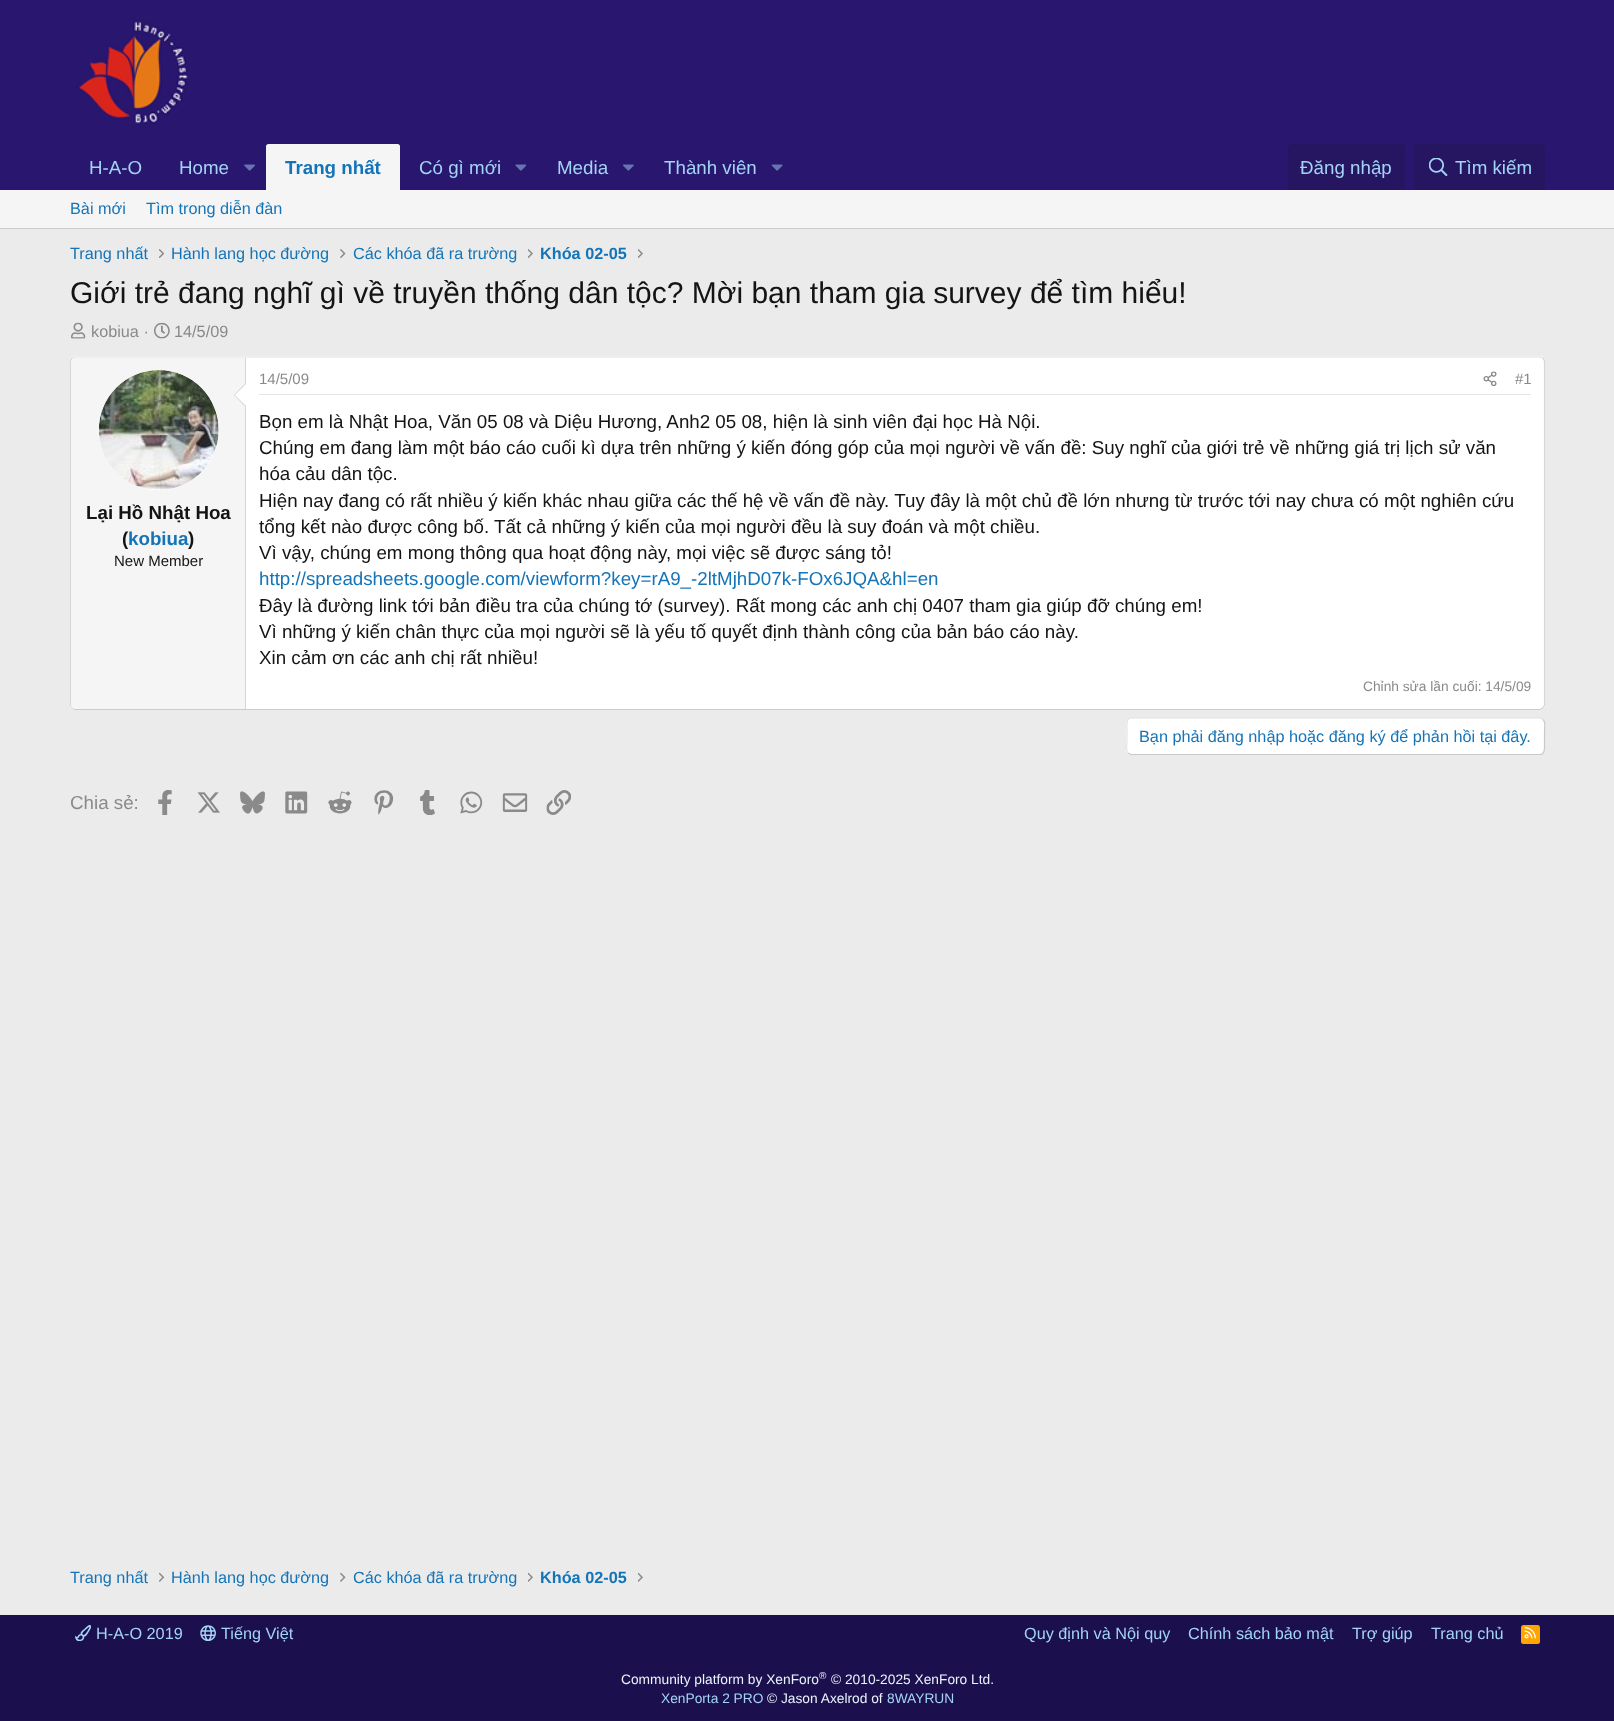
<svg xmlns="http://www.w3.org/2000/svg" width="1614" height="1721">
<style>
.a{font:18.75px Liberation Sans;fill:#a3d4f5}
.b{font:bold 18.75px Liberation Sans;fill:#1474b8}
.c{font:16.25px Liberation Sans;fill:#1474b8}
.d{font:bold 16.25px Liberation Sans;fill:#1474b8}
.e{font:30px Liberation Sans;fill:#141414}
.f{font:16.25px Liberation Sans;fill:#8a8a8a}
.g{font:bold 18.75px Liberation Sans;fill:#141414}
.h{font:15px Liberation Sans;fill:#141414}
.i{font:15px Liberation Sans;fill:#8a8a8a}
.j{font:18.75px Liberation Sans;fill:#141414}
.k{font:18.75px Liberation Sans;fill:#1474b8}
.l{font:13.75px Liberation Sans;fill:#8a8a8a}
.m{font:18.75px Liberation Sans;fill:#8a8a8a}
.n{font:16.25px Liberation Sans;fill:#a3d4f5}
.o{font:13.75px Liberation Sans;fill:#e8f4fc}
.p{font:10px Liberation Sans;fill:#e8f4fc}
.q{font:13.75px Liberation Sans;fill:#a3d4f5}
</style>
<rect width="100%" height="100%" fill="#ebebeb"/>
<path fill="#29166f" d="M0 0h1614v190H0z"/>
<image href="1.png" x="70" y="20" width="119" height="116"/>
<image href="2.png" x="244" y="164" width="11" height="7"/>
<path fill="#f5f5f5" d="M268.5 144h129c1.5 0 2.5 1 2.5 2.5v43.5h-134v-43.5c0-1.5 1-2.5 2.5-2.5z"/>
<image href="3.png" x="515" y="164" width="11" height="7"/>
<image href="4.png" x="623" y="164" width="11" height="7"/>
<image href="5.png" x="771" y="164" width="12" height="7"/>
<path fill="#261661" d="M1293 144h107c3 0 5 2 5 5v41h-117v-41c0-3 2-5 5-5z"/>
<path fill="#261661" d="M1419 144h121c3 0 5 2 5 5v41h-131v-41c0-3 2-5 5-5z"/>
<image href="6.png" x="1429" y="158" width="19" height="18"/>
<path fill="#f5f5f5" d="M0 190h1614v38H0z"/>
<path fill="#ccc" d="M0 228h1614v1H0z"/>
<image href="7.png" x="159" y="249" width="6" height="9"/>
<image href="8.png" x="340" y="249" width="6" height="9"/>
<image href="9.png" x="528" y="249" width="5" height="9"/>
<image href="9.png" x="638" y="249" width="5" height="9"/>
<image href="10.png" x="71" y="322" width="15" height="17"/>
<image href="11.png" x="154" y="322" width="16" height="17"/>
<rect fill="#fff" x="70" y="356" width="1475" height="354" rx="5"/>
<path fill="none" stroke="#e0e0e0" stroke-width="1.2" d="M72 358l3-1h1465l3 1"/>
<path fill="none" stroke="#d6d6d6" stroke-width="1.2" d="M1543 358l1.5 3v344l-1.5 3"/>
<path fill="none" stroke="#ccc" stroke-width="1.2" d="M1543 708l-3 1.5h-1465l-3-1.5"/>
<path fill="none" stroke="#d6d6d6" stroke-width="1.2" d="M72 708l-1.5-3v-344l1.5-3"/>
<path fill="#f5f5f5" d="M75 358h171v351h-171c-2 0-4-2-4-4v-343c0-2 2-4 4-4z"/>
<path fill="#d6d6d6" d="M245 358h1v351H245z"/>
<circle fill="#fff" cx="159" cy="430" r="60"/>
<image href="12.png" x="99" y="370" width="120" height="120"/>
<path fill="#d6d6d6" d="M246 382.5v25l-12-12.5z"/>
<path fill="#fff" d="M246 384v22l-11-11z"/>
<path fill="#e5e5e5" d="M259 394h1272v1H259z"/>
<image href="13.png" x="1483" y="371" width="14" height="15"/>
<rect fill="#fff" x="1126" y="718" width="419" height="37" rx="5"/>
<path fill="none" stroke="#c9c9c9" stroke-width="1.2" d="M1543 719.5c3 2.5 1.5 9 1.5 12v14c0 3 .5 9-4.5 9h-409l-3-1.5"/>
<path fill="none" stroke="#e3e3e3" stroke-width="1.2" d="M1128 753c-2.5-2.5-1-9-1-12v-14c0-3-.5-9 4-9h409l3 1.5"/>
<image href="14.png" x="158" y="790" width="14" height="25"/>
<image href="15.png" x="197" y="792" width="23" height="21"/>
<image href="16.png" x="240" y="791" width="25" height="23"/>
<image href="17.png" x="285" y="791" width="23" height="23"/>
<image href="18.png" x="328" y="791" width="24" height="23"/>
<image href="19.png" x="374" y="790" width="20" height="25"/>
<image href="20.png" x="420" y="790" width="15" height="25"/>
<image href="21.png" x="460" y="791" width="23" height="23"/>
<image href="22.png" x="502" y="793" width="26" height="19"/>
<image href="23.png" x="546" y="790" width="25" height="25"/>
<image href="24.png" x="159" y="1572" width="6" height="10"/>
<image href="25.png" x="340" y="1572" width="6" height="10"/>
<image href="26.png" x="528" y="1572" width="5" height="10"/>
<image href="26.png" x="638" y="1572" width="5" height="10"/>
<path fill="#1c0f4d" d="M0 1615h1614v106H0z"/>
<image href="27.png" x="75" y="1625" width="16" height="16"/>
<image href="28.png" x="200" y="1625" width="16" height="16"/>
<rect fill="#ffa500" x="1521" y="1625" width="19" height="19" rx="2.5"/>
<image href="29.png" x="1524" y="1627" width="12" height="12"/>
<text class="a" x="89" y="174">H-A-O</text>
<text class="a" x="179" y="174">Home</text>
<text class="b" x="285" y="174">Trang nhất</text>
<text class="a" x="419" y="174">Có gì mới</text>
<text class="a" x="557" y="174">Media</text>
<text class="a" x="664" y="174">Thành viên</text>
<text class="a" x="1300" y="174">Đăng nhập</text>
<text class="a" x="1455" y="174">Tìm kiếm</text>
<text class="c" x="70" y="214">Bài mới</text>
<text class="c" x="146" y="214">Tìm trong diễn đàn</text>
<text class="c" x="70" y="259">Trang nhất</text>
<text class="c" x="171" y="259">Hành lang học đường</text>
<text class="c" x="353" y="259">Các khóa đã ra trường</text>
<text class="d" x="540" y="259">Khóa 02-05</text>
<text class="e" x="70" y="303">Giới trẻ đang nghĩ gì về truyền thống dân tộc? Mời bạn tham gia survey để tìm hiểu!</text>
<text class="f" x="91" y="337">kobiua ·</text>
<text class="f" x="174" y="337">14/5/09</text>
<text class="g" x="86" y="519">Lại Hồ Nhật Hoa</text>
<text class="g" x="122" y="545">(</text>
<text class="b" x="128" y="545">kobiua</text>
<text class="g" x="188" y="545">)</text>
<text class="h" x="114" y="566">New Member</text>
<text class="i" x="259" y="384">14/5/09</text>
<text class="i" x="1515" y="384">#1</text>
<text class="j" x="259" y="428">Bọn em là Nhật Hoa, Văn 05 08 và Diệu Hương, Anh2 05 08, hiện là sinh viên đại học Hà Nội.</text>
<text class="j" x="259" y="454">Chúng em đang làm một báo cáo cuối kì dựa trên những ý kiến đóng góp của mọi người về vấn đề: Suy nghĩ của giới trẻ về những giá trị lịch sử văn</text>
<text class="j" x="259" y="480">hóa cảu dân tộc.</text>
<text class="j" x="259" y="507">Hiện nay đang có rất nhiều ý kiến khác nhau giữa các thế hệ về vấn đề này. Tuy đây là một chủ đề lớn nhưng từ trước tới nay chưa có một nghiên cứu</text>
<text class="j" x="259" y="533">tổng kết nào được công bố. Tất cả những ý kiến của mọi người đều là suy đoán và một chiều.</text>
<text class="j" x="259" y="559">Vì vậy, chúng em mong thông qua hoạt động này, mọi việc sẽ được sáng tỏ!</text>
<text class="k" x="259" y="585">http://spreadsheets.google.com/viewform?key=rA9_-2ltMjhD07k-FOx6JQA&amp;hl=en</text>
<text class="j" x="259" y="612">Đây là đường link tới bản điều tra của chúng tớ (survey). Rất mong các anh chị 0407 tham gia giúp đỡ chúng em!</text>
<text class="j" x="259" y="638">Vì những ý kiến chân thực của mọi người sẽ là yếu tố quyết định thành công của bản báo cáo này.</text>
<text class="j" x="259" y="664">Xin cảm ơn các anh chị rất nhiều!</text>
<text class="l" x="1363" y="691">Chỉnh sửa lần cuối: 14/5/09</text>
<text class="c" x="1139" y="742">Bạn phải đăng nhập hoặc đăng ký để phản hồi tại đây.</text>
<text class="m" x="70" y="809">Chia sẻ:</text>
<text class="c" x="70" y="1583">Trang nhất</text>
<text class="c" x="171" y="1583">Hành lang học đường</text>
<text class="c" x="353" y="1583">Các khóa đã ra trường</text>
<text class="d" x="540" y="1583">Khóa 02-05</text>
<text class="n" x="96" y="1639">H-A-O 2019</text>
<text class="n" x="221" y="1639">Tiếng Việt</text>
<text class="n" x="1024" y="1639">Quy định và Nội quy</text>
<text class="n" x="1188" y="1639">Chính sách bảo mật</text>
<text class="n" x="1352" y="1639">Trợ giúp</text>
<text class="n" x="1431" y="1639">Trang chủ</text>
<text class="o" x="621" y="1684">Community platform by XenForo</text>
<text class="p" x="819" y="1679">®</text>
<text class="o" x="831" y="1684">© 2010-2025 XenForo Ltd.</text>
<text class="q" x="661" y="1703">XenPorta 2 PRO</text>
<text class="o" x="767" y="1703">© Jason Axelrod of</text>
<text class="q" x="887" y="1703">8WAYRUN</text>
</svg>
